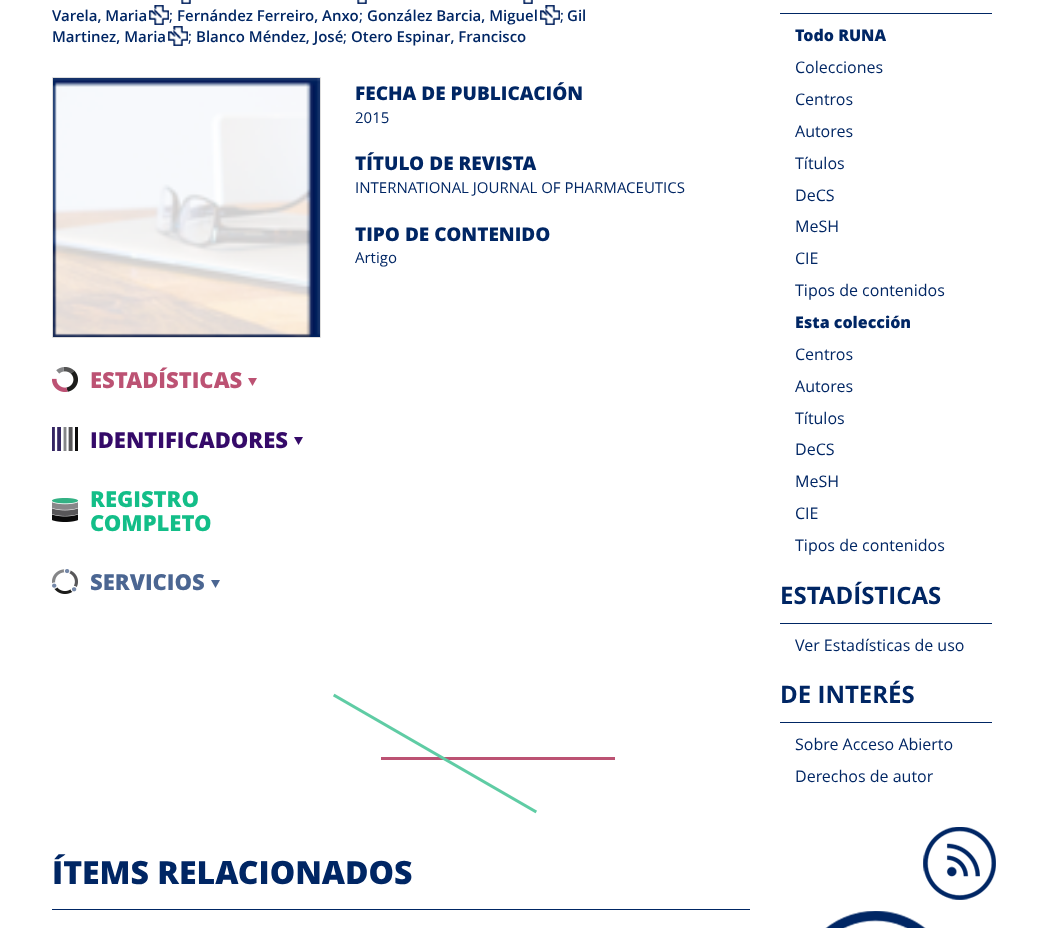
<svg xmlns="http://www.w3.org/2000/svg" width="1044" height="928">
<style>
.a{font:600 15px Open Sans;fill:#002664}
.b{font:15px Open Sans;fill:#002664}
.c{font:800 19px Open Sans;fill:#002664}
.d{font:800 22px Open Sans;fill:#bc5273}
.e{font:800 22px Open Sans;fill:#350a69}
.f{font:800 22px Open Sans;fill:#13be88}
.g{font:800 22px Open Sans;fill:#4b6692}
.h{font:800 32px Open Sans;fill:#002664}
.i{font:800 16px Open Sans;fill:#002664}
.j{font:16px Open Sans;fill:#002664}
.k{font:bold 24px Open Sans;fill:#002664}
</style>
<rect width="100%" height="100%" fill="#fff"/>
<image href="1.png" x="181" y="0" width="10" height="4"/>
<image href="1.png" x="357" y="0" width="10" height="4"/>
<image href="1.png" x="523" y="0" width="10" height="4"/>
<image href="2.png" x="149" y="5" width="20" height="20"/>
<image href="2.png" x="540" y="5" width="20" height="20"/>
<image href="2.png" x="168" y="26" width="20" height="20"/>
<path fill="none" stroke="#ddd" d="M52.5 77.5h268v260H52.5z"/>
<image href="3.png" x="53" y="78" width="267" height="259"/>
<image href="4.png" x="52" y="367" width="26" height="25"/>
<image href="5.png" x="248" y="378" width="9" height="8"/>
<image href="6.png" x="52" y="427" width="26" height="24"/>
<image href="7.png" x="294" y="437" width="9" height="8"/>
<image href="8.png" x="52" y="498" width="26" height="24"/>
<image href="9.png" x="52" y="569" width="26" height="25"/>
<image href="10.png" x="211" y="580" width="9" height="8"/>
<image href="11.png" x="333" y="693" width="282" height="121"/>
<path fill="#002664" d="M52 909h698v1H52z"/>
<path fill="#002664" d="M780 13h212v1H780z"/>
<path fill="#002664" d="M780 623h212v1H780z"/>
<path fill="#002664" d="M780 722h212v1H780z"/>
<image href="12.png" x="923" y="827" width="73" height="73"/>
<image href="13.png" x="825" y="911" width="101" height="17"/>
<text class="a" x="52" y="21">Varela, Maria</text>
<text class="b" x="169" y="21">;</text>
<text class="a" x="177" y="21">Fernández Ferreiro, Anxo</text>
<text class="b" x="359" y="21">;</text>
<text class="a" x="367" y="21">González Barcia, Miguel</text>
<text class="b" x="560" y="21">;</text>
<text class="a" x="567" y="21">Gil</text>
<text class="a" x="52" y="42">Martinez, Maria</text>
<text class="b" x="188" y="42">;</text>
<text class="a" x="196" y="42">Blanco Méndez, José</text>
<text class="b" x="343" y="42">;</text>
<text class="a" x="351" y="42">Otero Espinar, Francisco</text>
<text class="c" x="355" y="100">FECHA DE PUBLICACIÓN</text>
<text class="b" x="355" y="123">2015</text>
<text class="c" x="355" y="170">TÍTULO DE REVISTA</text>
<text class="b" x="355" y="193">INTERNATIONAL JOURNAL OF PHARMACEUTICS</text>
<text class="c" x="355" y="241">TIPO DE CONTENIDO</text>
<text class="b" x="355" y="263">Artigo</text>
<text class="d" x="90" y="388">ESTADÍSTICAS</text>
<text class="e" x="90" y="448">IDENTIFICADORES</text>
<text class="f" x="90" y="507">REGISTRO</text>
<text class="f" x="90" y="531">COMPLETO</text>
<text class="g" x="90" y="590">SERVICIOS</text>
<text class="h" x="52" y="884">ÍTEMS RELACIONADOS</text>
<text class="i" x="795" y="41">Todo RUNA</text>
<text class="j" x="795" y="73">Colecciones</text>
<text class="j" x="795" y="105">Centros</text>
<text class="j" x="795" y="137">Autores</text>
<text class="j" x="795" y="169">Títulos</text>
<text class="j" x="795" y="201">DeCS</text>
<text class="j" x="795" y="232">MeSH</text>
<text class="j" x="795" y="264">CIE</text>
<text class="j" x="795" y="296">Tipos de contenidos</text>
<text class="i" x="795" y="328">Esta colección</text>
<text class="j" x="795" y="360">Centros</text>
<text class="j" x="795" y="392">Autores</text>
<text class="j" x="795" y="424">Títulos</text>
<text class="j" x="795" y="455">DeCS</text>
<text class="j" x="795" y="487">MeSH</text>
<text class="j" x="795" y="519">CIE</text>
<text class="j" x="795" y="551">Tipos de contenidos</text>
<text class="k" x="780" y="604">ESTADÍSTICAS</text>
<text class="j" x="795" y="651">Ver Estadísticas de uso</text>
<text class="k" x="780" y="703">DE INTERÉS</text>
<text class="j" x="795" y="750">Sobre Acceso Abierto</text>
<text class="j" x="795" y="782">Derechos de autor</text>
</svg>
